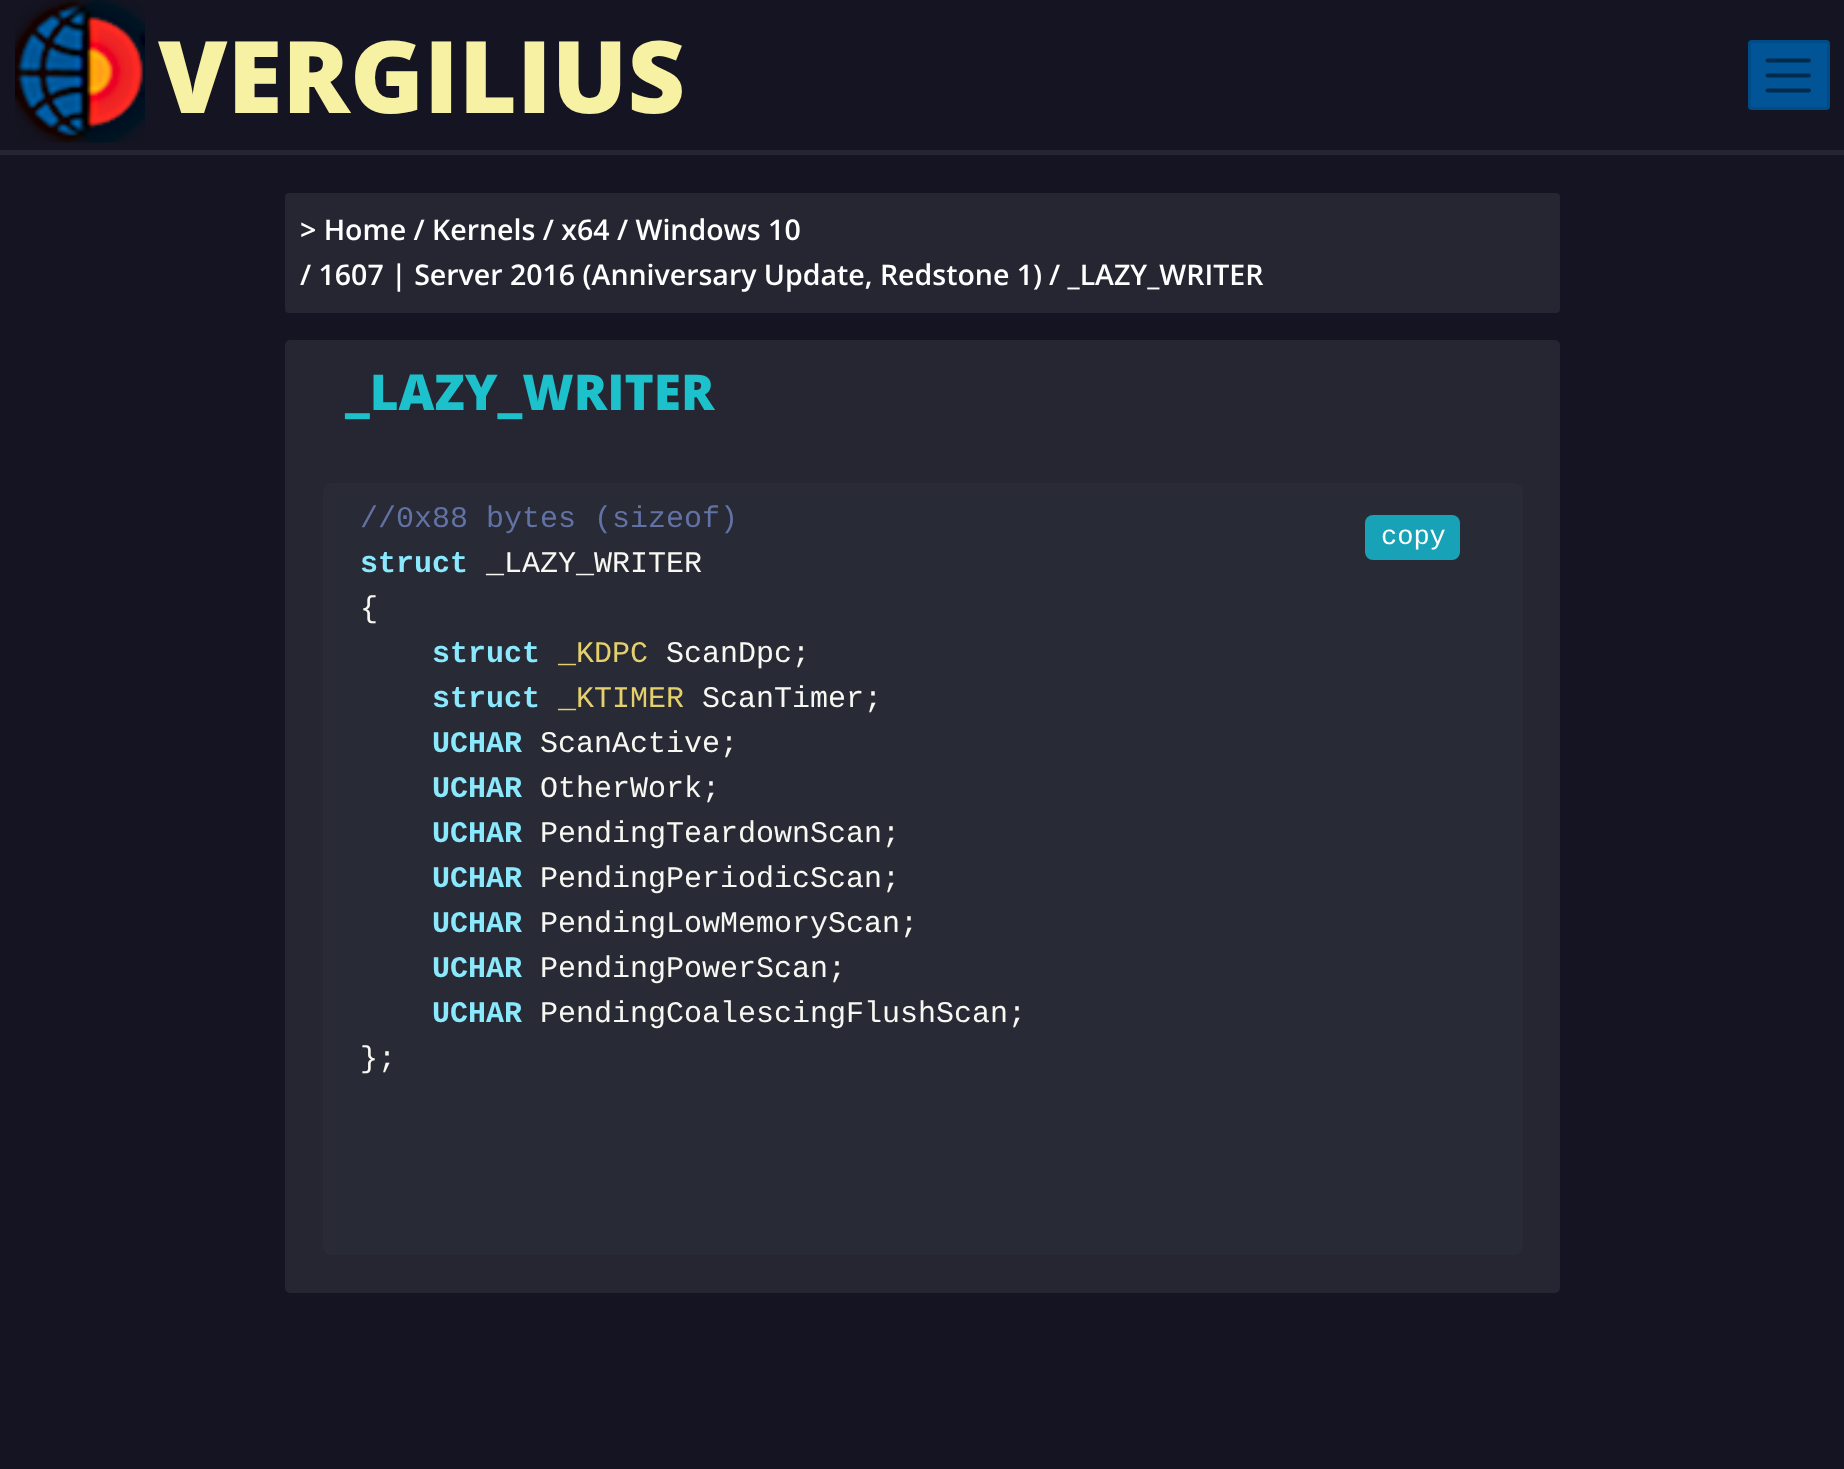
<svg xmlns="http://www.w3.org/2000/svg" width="1844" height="1469">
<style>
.a{font:800 100px Open Sans;fill:#f6f1a3}
.b{font:600 28.5px Open Sans;fill:#fff}
.c{font:800 49.5px Open Sans;fill:#1cc1cc}
.d{font:30px Liberation Mono;fill:#6272a4}
.e{font:bold 30px Liberation Mono;fill:#8be9fd}
.f{font:30px Liberation Mono;fill:#f8f8f2}
.g{font:30px Liberation Mono;fill:#e4d06c}
.h{font:27px Liberation Mono;fill:#fff}
</style>
<rect width="100%" height="100%" fill="#141422"/>
<path fill="#262633" d="M0 150h1844v5H0z"/>
<image href="1.png" x="15" y="0" width="130" height="143"/>
<rect fill="#015597" x="1748" y="40" width="82" height="70" rx="4"/>
<rect fill="none" stroke="#0000001a" stroke-width="3" x="1749.5" y="41.5" width="79" height="67" rx="2.5"/>
<path fill="none" stroke="#012b4c" stroke-width="3.8" stroke-linecap="round" d="M1767.5 60.5h41.5m-41.5 15h41.5m-41.5 15h41.5"/>
<rect fill="#262633" x="285" y="193" width="1275" height="120" rx="4"/>
<rect fill="#262633" x="285" y="340" width="1275" height="953" rx="5"/>
<rect fill="#282a36" x="323" y="483" width="1200" height="772" rx="8"/>
<rect fill="#17a2b8" x="1365" y="515" width="95" height="45" rx="8"/>
<text class="a" x="158" y="113">VERGILIUS</text>
<text class="b" x="300" y="240">&gt; Home / Kernels / x64 / Windows 10</text>
<text class="b" x="300" y="285">/ 1607 | Server 2016 (Anniversary Update, Redstone 1)</text>
<text class="b" x="1049" y="285">/ _LAZY_WRITER</text>
<text class="c" x="345" y="410">_LAZY_WRITER</text>
<text class="d" x="360" y="527">//0x88 bytes (sizeof)</text>
<text class="e" x="360" y="572">struct</text>
<text class="f" x="486" y="572">_LAZY_WRITER</text>
<text class="f" x="360" y="617">{</text>
<text class="e" x="432" y="662">struct</text>
<text class="g" x="558" y="662">_KDPC</text>
<text class="f" x="666" y="662">ScanDpc;</text>
<text class="e" x="432" y="707">struct</text>
<text class="g" x="558" y="707">_KTIMER</text>
<text class="f" x="702" y="707">ScanTimer;</text>
<text class="e" x="432" y="752">UCHAR</text>
<text class="f" x="540" y="752">ScanActive;</text>
<text class="e" x="432" y="797">UCHAR</text>
<text class="f" x="540" y="797">OtherWork;</text>
<text class="e" x="432" y="842">UCHAR</text>
<text class="f" x="540" y="842">PendingTeardownScan;</text>
<text class="e" x="432" y="887">UCHAR</text>
<text class="f" x="540" y="887">PendingPeriodicScan;</text>
<text class="e" x="432" y="932">UCHAR</text>
<text class="f" x="540" y="932">PendingLowMemoryScan;</text>
<text class="e" x="432" y="977">UCHAR</text>
<text class="f" x="540" y="977">PendingPowerScan;</text>
<text class="e" x="432" y="1022">UCHAR</text>
<text class="f" x="540" y="1022">PendingCoalescingFlushScan;</text>
<text class="f" x="360" y="1067">};</text>
<text class="h" x="1381" y="544">copy</text>
</svg>
